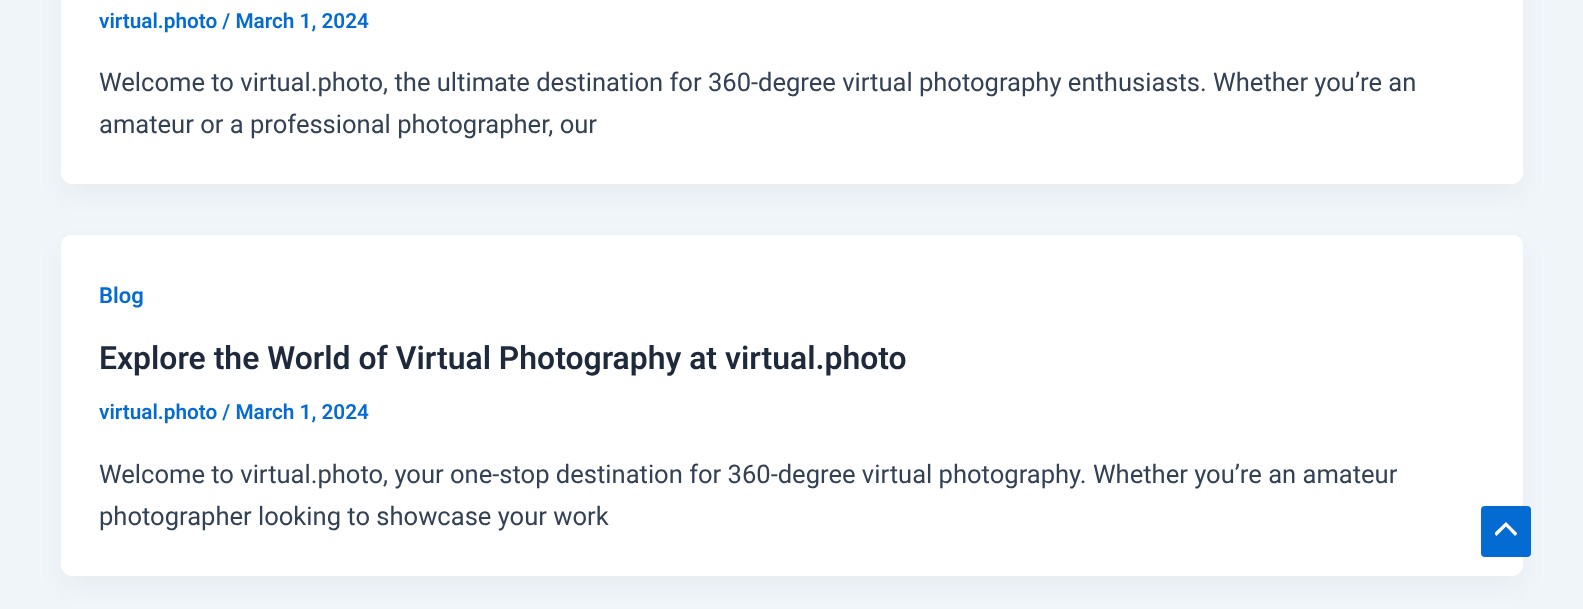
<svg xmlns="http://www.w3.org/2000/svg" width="1583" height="609">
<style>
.a{font:600 20.75px Roboto;fill:#046bd2}
.b{font:25.55px Roboto;fill:#334155}
.c{font:600 22px Roboto;fill:#046bd2}
.d{font:600 31.9px Roboto;fill:#1e293b}
</style>
<defs>
<clipPath id="clip1"><path d="M1495 520h22v19H1495z"/></clipPath>
</defs>
<rect width="100%" height="100%" fill="#f0f5fa"/>
<rect fill="#1018280d" filter="blur(13px)" x="65" y="-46" width="1454" height="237" rx="7"/>
<rect fill="#fff" x="61" y="-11" width="1462" height="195" rx="11"/>
<rect fill="#1018280d" filter="blur(13px)" x="65" y="249" width="1454" height="334" rx="7"/>
<rect fill="#fff" x="61" y="235" width="1462" height="341" rx="11"/>
<rect fill="#046bd2" x="1481" y="506" width="50" height="51" rx="4"/>
<g clip-path="url(#clip1)">
<path fill="#fff" d="M1517.5 533.5l-11.5-11.5l-12 11.5l2.5 2.5l9.5-9.5l9 9.5z"/>
</g>
<text class="a" x="99" y="28">virtual.photo / March 1, 2024</text>
<text class="b" x="99" y="91">Welcome to virtual.photo, the ultimate destination for 360-degree virtual photography enthusiasts. Whether you’re an</text>
<text class="b" x="99" y="133">amateur or a professional photographer, our</text>
<text class="c" x="99" y="303">Blog</text>
<text class="d" x="99" y="369">Explore the World of Virtual Photography at virtual.photo</text>
<text class="a" x="99" y="419">virtual.photo / March 1, 2024</text>
<text class="b" x="99" y="483">Welcome to virtual.photo, your one-stop destination for 360-degree virtual photography. Whether you’re an amateur</text>
<text class="b" x="99" y="525">photographer looking to showcase your work</text>
</svg>
